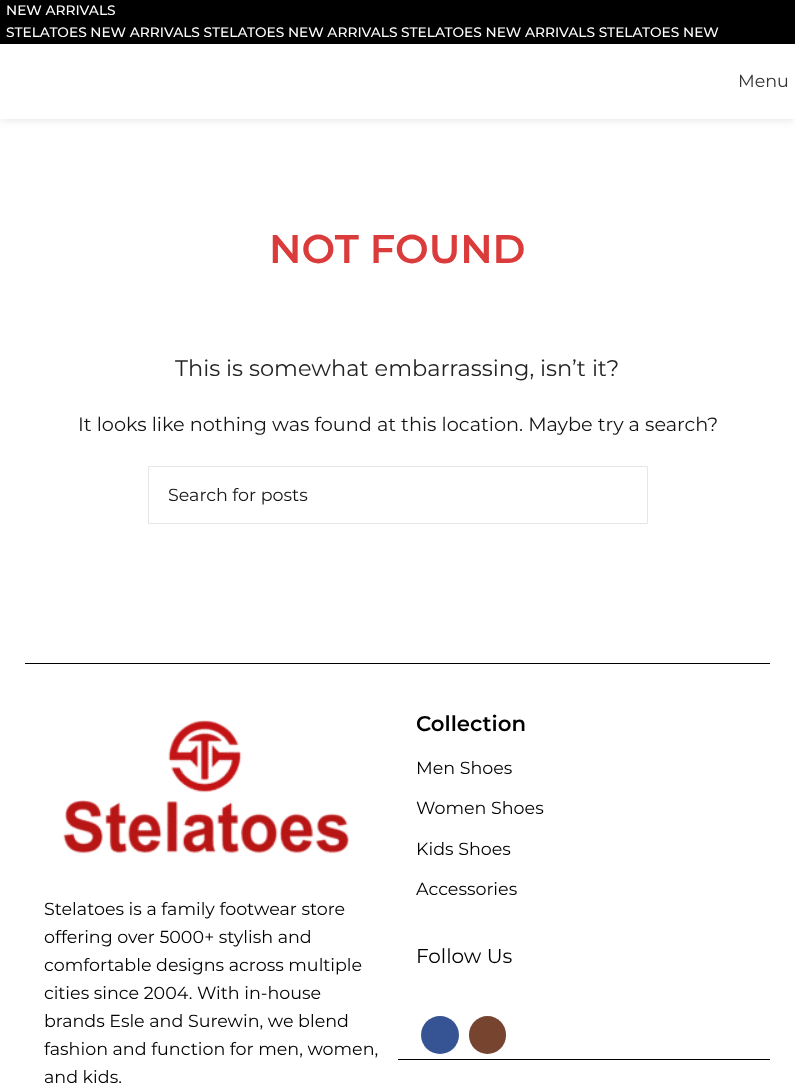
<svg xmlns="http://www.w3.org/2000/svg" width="795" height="1087">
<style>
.a{font:500 13.75px Montserrat;fill:#fff}
.b{font:17.5px Montserrat;fill:#333}
.c{font:600 40px Montserrat;fill:#da3c3c}
.d{font:22.5px Montserrat;fill:#242424}
.e{font:19.25px Montserrat;fill:#141414}
.f{font:17.5px Montserrat;fill:#141414}
.g{font:600 21.25px Montserrat;fill:#000}
.h{font:17.5px Montserrat;fill:#000}
.i{font:20px Montserrat;fill:#000}
</style>
<rect width="100%" height="100%" fill="#fff"/>
<path fill="#0000001a" filter="blur(5px)" d="M0 45h795v75H0z"/>
<path fill="#000" d="M0 0h795v44H0z"/>
<path fill="#fff" d="M0 44h795v75H0z"/>
<path fill="none" stroke="#e6e6e6" d="M148.5 466.5h499v57H148.5z"/>
<circle fill="#365493" cx="440" cy="1035" r="19"/>
<rect fill="#774430" x="469" y="1016" width="37" height="38" rx="18.5"/>
<path fill="#000" d="M25 663h745v1H25z"/>
<image href="1.png" x="63" y="720" width="287" height="135"/>
<path fill="#000" d="M398 1059h372v1H398z"/>
<text class="a" x="6" y="15">NEW ARRIVALS</text>
<text class="a" x="6" y="37">STELATOES NEW ARRIVALS STELATOES NEW ARRIVALS STELATOES NEW ARRIVALS STELATOES NEW</text>
<text class="b" x="738" y="87">Menu</text>
<text class="c" x="269" y="263">NOT FOUND</text>
<text class="d" x="175" y="376">This is somewhat embarrassing, isn’t it?</text>
<text class="e" x="78" y="431">It looks like nothing was found at this location. Maybe try a search?</text>
<text class="f" x="168" y="501">Search for posts</text>
<text class="g" x="416" y="731">Collection</text>
<text class="h" x="416" y="774">Men Shoes</text>
<text class="h" x="416" y="814">Women Shoes</text>
<text class="h" x="416" y="855">Kids Shoes</text>
<text class="h" x="416" y="895">Accessories</text>
<text class="i" x="416" y="963">Follow Us</text>
<text class="h" x="44" y="915">Stelatoes is a family footwear store</text>
<text class="h" x="44" y="943">offering over 5000+ stylish and</text>
<text class="h" x="44" y="971">comfortable designs across multiple</text>
<text class="h" x="44" y="999">cities since 2004. With in-house</text>
<text class="h" x="44" y="1027">brands Esle and Surewin, we blend</text>
<text class="h" x="44" y="1055">fashion and function for men, women,</text>
<text class="h" x="44" y="1083">and kids.</text>
</svg>
